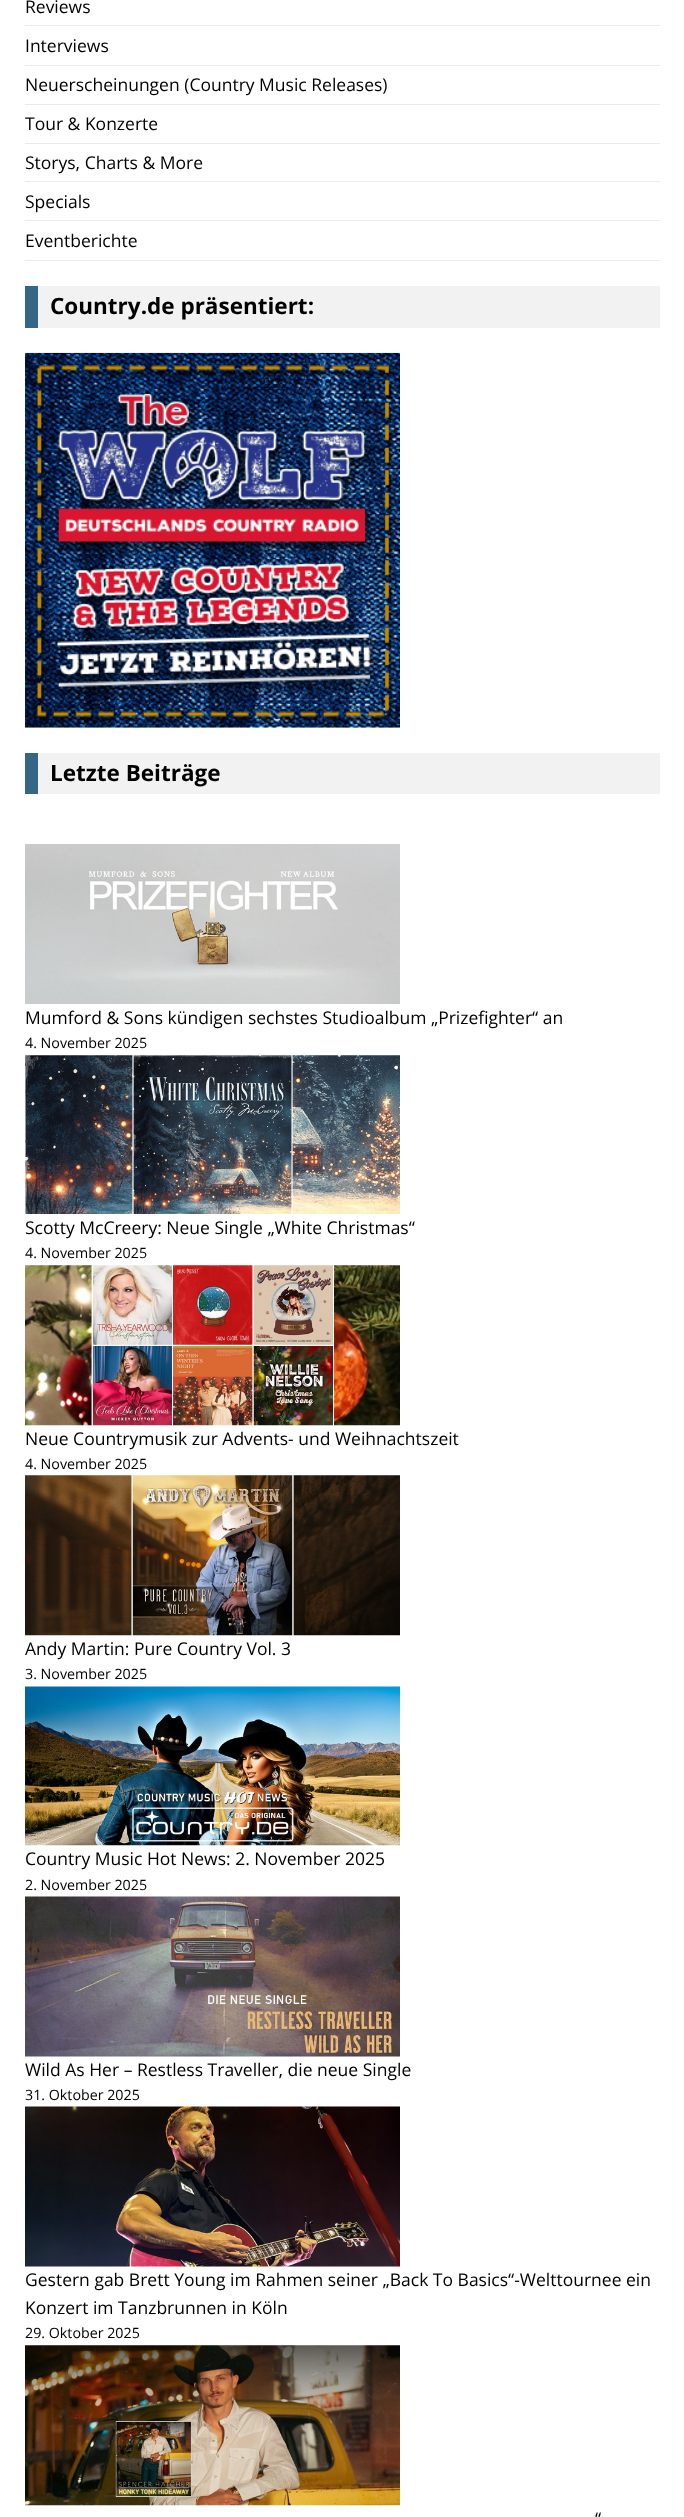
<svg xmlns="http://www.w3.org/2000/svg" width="684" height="2517">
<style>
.a{font:17.5px Open Sans;fill:#000}
.b{font:bold 22.5px Open Sans;fill:#000}
.c{font:14.25px Open Sans;fill:#000}
</style>
<rect width="100%" height="100%" fill="#fff"/>
<path fill="#ebebeb" d="M25 25h635v1H25z"/>
<path fill="#ebebeb" d="M25 65h635v1H25z"/>
<path fill="#ebebeb" d="M25 104h635v1H25z"/>
<path fill="#ebebeb" d="M25 143h635v1H25z"/>
<path fill="#ebebeb" d="M25 181h635v1H25z"/>
<path fill="#ebebeb" d="M25 220h635v1H25z"/>
<path fill="#ebebeb" d="M25 260h635v1H25z"/>
<path fill="#f2f2f2" d="M38 286h622v42H38z"/>
<path fill="#366685" d="M25 286h13v42H25z"/>
<image href="1.png" x="25" y="352" width="375" height="376"/>
<path fill="#f2f2f2" d="M38 753h622v41H38z"/>
<path fill="#366685" d="M25 753h13v41H25z"/>
<image href="2.png" x="25" y="844" width="375" height="160"/>
<image href="3.png" x="25" y="1055" width="375" height="159"/>
<image href="4.png" x="25" y="1265" width="375" height="161"/>
<image href="5.png" x="25" y="1475" width="375" height="161"/>
<image href="6.png" x="25" y="1686" width="375" height="160"/>
<image href="7.png" x="25" y="1896" width="375" height="161"/>
<image href="8.png" x="25" y="2106" width="375" height="161"/>
<image href="9.png" x="25" y="2345" width="375" height="161"/>
<text class="a" x="25" y="13">Reviews</text>
<text class="a" x="25" y="52">Interviews</text>
<text class="a" x="25" y="91">Neuerscheinungen (Country Music Releases)</text>
<text class="a" x="25" y="130">Tour &amp; Konzerte</text>
<text class="a" x="25" y="169">Storys, Charts &amp; More</text>
<text class="a" x="25" y="208">Specials</text>
<text class="a" x="25" y="247">Eventberichte</text>
<text class="b" x="50" y="314">Country.de präsentiert:</text>
<text class="b" x="50" y="781">Letzte Beiträge</text>
<text class="a" x="25" y="1024">Mumford &amp; Sons kündigen sechstes Studioalbum „Prizefighter“ an</text>
<text class="c" x="25" y="1048">4. November 2025</text>
<text class="a" x="25" y="1234">Scotty McCreery: Neue Single „White Christmas“</text>
<text class="c" x="25" y="1258">4. November 2025</text>
<text class="a" x="25" y="1445">Neue Countrymusik zur Advents- und Weihnachtszeit</text>
<text class="c" x="25" y="1469">4. November 2025</text>
<text class="a" x="25" y="1655">Andy Martin: Pure Country Vol. 3</text>
<text class="c" x="25" y="1679">3. November 2025</text>
<text class="a" x="25" y="1865">Country Music Hot News: 2. November 2025</text>
<text class="c" x="25" y="1890">2. November 2025</text>
<text class="a" x="25" y="2076">Wild As Her – Restless Traveller, die neue Single</text>
<text class="c" x="25" y="2100">31. Oktober 2025</text>
<text class="a" x="25" y="2286">Gestern gab Brett Young im Rahmen seiner „Back To Basics“-Welttournee ein</text>
<text class="a" x="25" y="2314">Konzert im Tanzbrunnen in Köln</text>
<text class="c" x="25" y="2338">29. Oktober 2025</text>
<text class="a" x="595" y="2525">“</text>
</svg>
